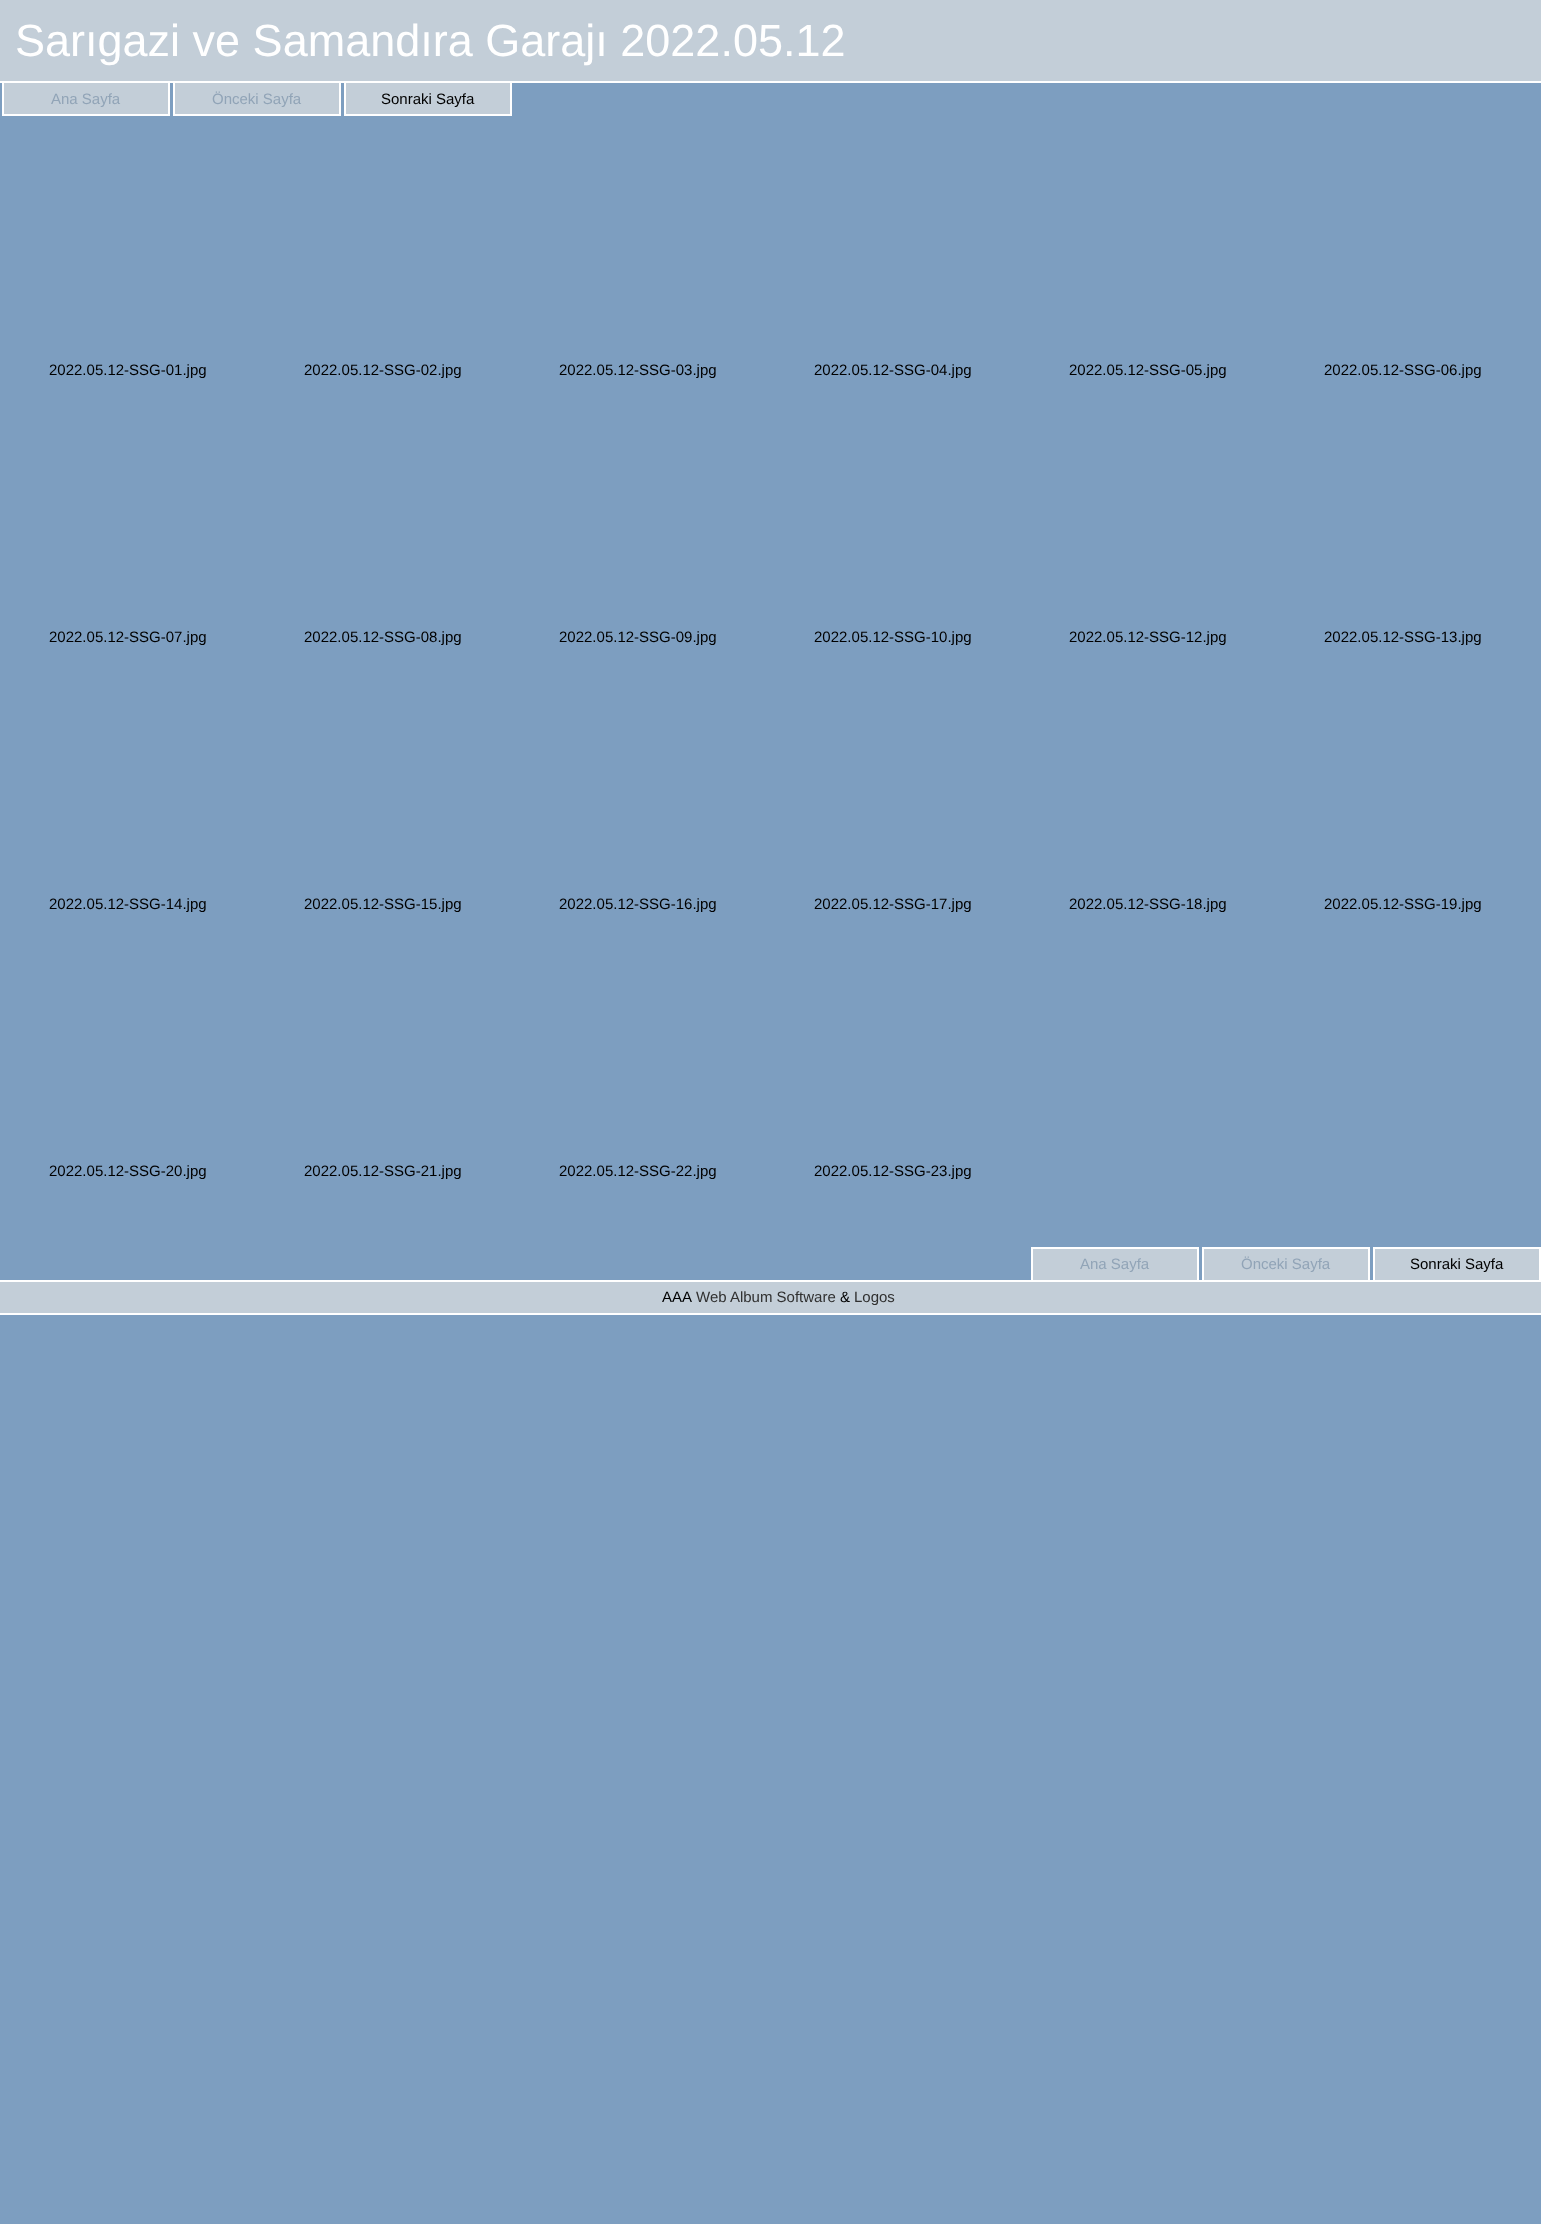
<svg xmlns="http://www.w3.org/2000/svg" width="1541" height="2224">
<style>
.a{font:45px Liberation Sans;fill:#fff}
.b{font:15px Liberation Sans;fill:#91a4b7}
.c{font:15px Liberation Sans;fill:#000}
.d{font:15px Liberation Sans;fill:#303030}
</style>
<rect width="100%" height="100%" fill="#7d9ec0"/>
<path fill="#c3ced8" d="M0 0h1541v81H0z"/>
<path fill="#fff" d="M0 81h1541v2H0z"/>
<path fill="#c3ced8" d="M4 83h164v31H4z"/>
<path fill="#fff" d="M168 83h2v33H168z"/>
<path fill="#fff" d="M2 114h168v2H2z"/>
<path fill="#fff" d="M2 83h2v33H2z"/>
<path fill="#c3ced8" d="M175 83h164v31H175z"/>
<path fill="#fff" d="M339 83h2v33H339z"/>
<path fill="#fff" d="M173 114h168v2H173z"/>
<path fill="#fff" d="M173 83h2v33H173z"/>
<path fill="#c3ced8" d="M346 83h164v31H346z"/>
<path fill="#fff" d="M510 83h2v33H510z"/>
<path fill="#fff" d="M344 114h168v2H344z"/>
<path fill="#fff" d="M344 83h2v33H344z"/>
<path fill="#c3ced8" d="M1033 1249h164v31H1033z"/>
<path fill="#fff" d="M1031 1247h168v2H1031z"/>
<path fill="#fff" d="M1197 1247h2v33H1197z"/>
<path fill="#fff" d="M1031 1247h2v33H1031z"/>
<path fill="#c3ced8" d="M1204 1249h164v31H1204z"/>
<path fill="#fff" d="M1202 1247h168v2H1202z"/>
<path fill="#fff" d="M1368 1247h2v33H1368z"/>
<path fill="#fff" d="M1202 1247h2v33H1202z"/>
<path fill="#c3ced8" d="M1375 1249h164v31H1375z"/>
<path fill="#fff" d="M1373 1247h168v2H1373z"/>
<path fill="#fff" d="M1539 1247h2v33H1539z"/>
<path fill="#fff" d="M1373 1247h2v33H1373z"/>
<path fill="#c3ced8" d="M0 1282h1541v31H0z"/>
<path fill="#fff" d="M0 1280h1541v2H0z"/>
<path fill="#fff" d="M0 1313h1541v2H0z"/>
<text class="a" x="15" y="56">Sarıgazi ve Samandıra Garajı 2022.05.12</text>
<text class="b" x="51" y="104">Ana Sayfa</text>
<text class="b" x="212" y="104">Önceki Sayfa</text>
<text class="c" x="381" y="104">Sonraki Sayfa</text>
<text class="c" x="49" y="375">2022.05.12-SSG-01.jpg</text>
<text class="c" x="304" y="375">2022.05.12-SSG-02.jpg</text>
<text class="c" x="559" y="375">2022.05.12-SSG-03.jpg</text>
<text class="c" x="814" y="375">2022.05.12-SSG-04.jpg</text>
<text class="c" x="1069" y="375">2022.05.12-SSG-05.jpg</text>
<text class="c" x="1324" y="375">2022.05.12-SSG-06.jpg</text>
<text class="c" x="49" y="642">2022.05.12-SSG-07.jpg</text>
<text class="c" x="304" y="642">2022.05.12-SSG-08.jpg</text>
<text class="c" x="559" y="642">2022.05.12-SSG-09.jpg</text>
<text class="c" x="814" y="642">2022.05.12-SSG-10.jpg</text>
<text class="c" x="1069" y="642">2022.05.12-SSG-12.jpg</text>
<text class="c" x="1324" y="642">2022.05.12-SSG-13.jpg</text>
<text class="c" x="49" y="909">2022.05.12-SSG-14.jpg</text>
<text class="c" x="304" y="909">2022.05.12-SSG-15.jpg</text>
<text class="c" x="559" y="909">2022.05.12-SSG-16.jpg</text>
<text class="c" x="814" y="909">2022.05.12-SSG-17.jpg</text>
<text class="c" x="1069" y="909">2022.05.12-SSG-18.jpg</text>
<text class="c" x="1324" y="909">2022.05.12-SSG-19.jpg</text>
<text class="c" x="49" y="1176">2022.05.12-SSG-20.jpg</text>
<text class="c" x="304" y="1176">2022.05.12-SSG-21.jpg</text>
<text class="c" x="559" y="1176">2022.05.12-SSG-22.jpg</text>
<text class="c" x="814" y="1176">2022.05.12-SSG-23.jpg</text>
<text class="b" x="1080" y="1269">Ana Sayfa</text>
<text class="b" x="1241" y="1269">Önceki Sayfa</text>
<text class="c" x="1410" y="1269">Sonraki Sayfa</text>
<text class="c" x="662" y="1302">AAA</text>
<text class="d" x="696" y="1302">Web Album Software</text>
<text class="c" x="840" y="1302">&amp;</text>
<text class="d" x="854" y="1302">Logos</text>
</svg>
